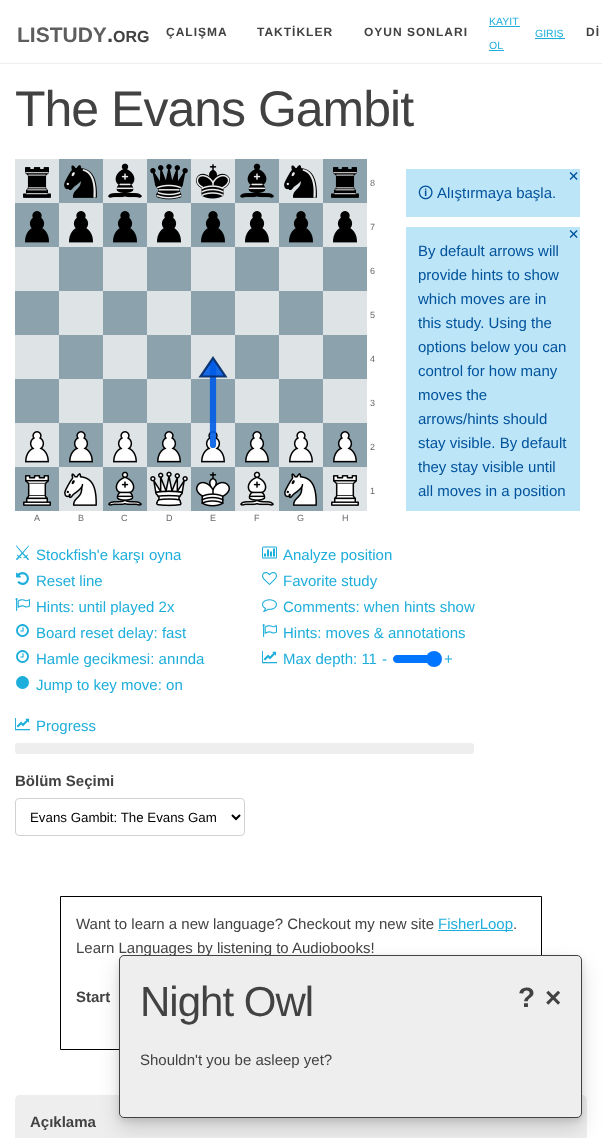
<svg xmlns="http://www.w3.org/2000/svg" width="602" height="1138">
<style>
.a{font:bold 21px Liberation Sans;fill:#5e5e5e}
.b{font:bold 22px Liberation Sans;fill:#424242}
.c{font:bold 16px Liberation Sans;fill:#424242}
.d{font:bold 12px Liberation Sans;letter-spacing:1px;fill:#424242}
.e{font:10.5px Liberation Sans;fill:#1eaedb}
.f{font:50px Liberation Sans;letter-spacing:-1px;fill:#424242}
.g{font:9px Liberation Sans;fill:#686868}
.h{font:15px FreeSans;fill:#00529b}
.i{font:15px 'Noto Sans Symbols 2';fill:#00529b}
.j{font:15px Liberation Sans;fill:#00529b}
.k{font:15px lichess;fill:#1eaedb}
.l{font:15px Liberation Sans;fill:#1eaedb}
.m{font:bold 15px Liberation Sans;fill:#424242}
.n{font:13.3px Liberation Sans;fill:#000}
.o{font:15px Liberation Sans;fill:#424242}
.p{font:42px Liberation Sans;letter-spacing:-1px;fill:#424242}
.q{font:bold 28px Liberation Sans;fill:#424242}
</style>
<rect width="100%" height="100%" fill="#fff"/>
<path fill="#eee" d="M0 63h602v1H0z"/>
<path fill="#1eaedb" d="M489 26h31v1H489z"/>
<path fill="#1eaedb" d="M489 50h15v1H489z"/>
<path fill="#1eaedb" d="M535 38h30v1H535z"/>
<image href="1.png" x="15" y="159" width="352" height="352"/>
<image href="2.png" x="23" y="167" width="28" height="31"/>
<image href="3.png" x="64" y="165" width="33" height="33"/>
<image href="4.png" x="108" y="163" width="34" height="35"/>
<image href="5.png" x="150" y="164" width="38" height="36"/>
<image href="6.png" x="195" y="164" width="35" height="35"/>
<image href="7.png" x="240" y="163" width="34" height="35"/>
<image href="8.png" x="284" y="165" width="33" height="33"/>
<image href="9.png" x="331" y="167" width="28" height="31"/>
<image href="10.png" x="25" y="211" width="24" height="32"/>
<image href="11.png" x="69" y="211" width="24" height="32"/>
<image href="10.png" x="113" y="211" width="24" height="32"/>
<image href="11.png" x="157" y="211" width="24" height="32"/>
<image href="10.png" x="201" y="211" width="24" height="32"/>
<image href="11.png" x="245" y="211" width="24" height="32"/>
<image href="10.png" x="289" y="211" width="24" height="32"/>
<image href="11.png" x="333" y="211" width="24" height="32"/>
<image href="12.png" x="25" y="431" width="24" height="32"/>
<image href="13.png" x="69" y="431" width="24" height="32"/>
<image href="12.png" x="113" y="431" width="24" height="32"/>
<image href="13.png" x="157" y="431" width="24" height="32"/>
<image href="12.png" x="201" y="431" width="24" height="32"/>
<image href="13.png" x="245" y="431" width="24" height="32"/>
<image href="12.png" x="289" y="431" width="24" height="32"/>
<image href="13.png" x="333" y="431" width="24" height="32"/>
<image href="14.png" x="23" y="475" width="28" height="31"/>
<image href="15.png" x="64" y="473" width="33" height="33"/>
<image href="16.png" x="108" y="471" width="34" height="35"/>
<image href="17.png" x="150" y="471" width="38" height="36"/>
<image href="18.png" x="195" y="472" width="35" height="35"/>
<image href="19.png" x="240" y="471" width="34" height="35"/>
<image href="20.png" x="284" y="473" width="33" height="33"/>
<image href="21.png" x="331" y="475" width="28" height="31"/>
<path fill="none" stroke="#005ce6e6" stroke-width="6.2" stroke-linecap="round" d="M213 445v-81"/>
<path fill="#005ce6e6" stroke="#002966e6" stroke-width="2.2" d="M200.5 376.5h25l-12.5-18.5z"/>
<path fill="#bde5f8" d="M406 169h174v48H406z"/>
<path fill="#bde5f8" d="M406 227h174v284H406z"/>
<rect fill="none" stroke="#b2b2b2" x="393.5" y="655.5" width="47" height="7" rx="3.5"/>
<path fill="#0075ff" d="M397 655h37v8h-37c-2 0-4-2-4-4c0-2 2-4 4-4z"/>
<circle fill="#0075ff" cx="434" cy="659" r="8"/>
<rect fill="#eee" x="15" y="743" width="459" height="11" rx="3"/>
<rect fill="none" stroke="#d1d1d1" x="15.5" y="798.5" width="229" height="37" rx="3.5"/>
<path fill="none" stroke="#000" stroke-width="2" d="M232 815l4 4l4-4"/>
<path fill="none" stroke="#000" d="M60.5 896.5h481v153H60.5z"/>
<path fill="#1eaedb" d="M438 930h75v1H438z"/>
<rect fill="#eee" x="15" y="1095" width="572" height="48" rx="5"/>
<rect fill="#0000001a" filter="blur(3px)" x="119" y="958" width="463" height="163" rx="5"/>
<rect fill="#00000026" filter="blur(10px)" x="119" y="965" width="463" height="163" rx="5"/>
<text class="a" x="17" y="42">LISTUDY</text>
<text class="b" x="107" y="42">.</text>
<text class="c" x="113" y="42">ORG</text>
<text class="d" x="166" y="36">ÇALIŞMA</text>
<text class="d" x="257" y="36">TAKTİKLER</text>
<text class="d" x="364" y="36">OYUN SONLARI</text>
<text class="e" x="489" y="25">KAYIT</text>
<text class="e" x="489" y="49">OL</text>
<text class="e" x="535" y="37">GIRIŞ</text>
<text class="d" x="586" y="36">Dİ</text>
<text class="f" x="15" y="126">The Evans Gambit</text>
<text class="g" x="370" y="186">8</text>
<text class="g" x="370" y="230">7</text>
<text class="g" x="370" y="274">6</text>
<text class="g" x="370" y="318">5</text>
<text class="g" x="370" y="362">4</text>
<text class="g" x="370" y="406">3</text>
<text class="g" x="370" y="450">2</text>
<text class="g" x="370" y="494">1</text>
<text class="g" x="34" y="521">A</text>
<text class="g" x="78" y="521">B</text>
<text class="g" x="121" y="521">C</text>
<text class="g" x="166" y="521">D</text>
<text class="g" x="210" y="521">E</text>
<text class="g" x="254" y="521">F</text>
<text class="g" x="297" y="521">G</text>
<text class="g" x="342" y="521">H</text>
<text class="h" x="569" y="181">🞫</text>
<text class="i" x="418" y="198">🛈</text>
<text class="j" x="437" y="198">Alıştırmaya başla.</text>
<text class="h" x="569" y="239">🞫</text>
<text class="j" x="418" y="256">By default arrows will</text>
<text class="j" x="418" y="280">provide hints to show</text>
<text class="j" x="418" y="304">which moves are in</text>
<text class="j" x="418" y="328">this study. Using the</text>
<text class="j" x="418" y="352">options below you can</text>
<text class="j" x="418" y="376">control for how many</text>
<text class="j" x="418" y="400">moves the</text>
<text class="j" x="418" y="424">arrows/hints should</text>
<text class="j" x="418" y="448">stay visible. By default</text>
<text class="j" x="418" y="472">they stay visible until</text>
<text class="j" x="418" y="496">all moves in a position</text>
<text class="k" x="15" y="560">!</text>
<text class="l" x="36" y="560">Stockfish'e karşı oyna</text>
<text class="k" x="262" y="560">/</text>
<text class="l" x="283" y="560">Analyze position</text>
<text class="k" x="15" y="586">.</text>
<text class="l" x="36" y="586">Reset line</text>
<text class="k" x="262" y="586">#</text>
<text class="l" x="283" y="586">Favorite study</text>
<text class="k" x="15" y="612">-</text>
<text class="l" x="36" y="612">Hints: until played 2x</text>
<text class="k" x="262" y="612">3</text>
<text class="l" x="283" y="612">Comments: when hints show</text>
<text class="k" x="15" y="638">(</text>
<text class="l" x="36" y="638">Board reset delay: fast</text>
<text class="k" x="262" y="638">-</text>
<text class="l" x="283" y="638">Hints: moves &amp; annotations</text>
<text class="k" x="15" y="664">(</text>
<text class="l" x="36" y="664">Hamle gecikmesi: anında</text>
<text class="k" x="262" y="664">+</text>
<text class="l" x="283" y="664">Max depth: 11</text>
<text class="l" x="382" y="664">-</text>
<text class="l" x="444" y="664">+</text>
<text class="k" x="15" y="690">$</text>
<text class="l" x="36" y="690">Jump to key move: on</text>
<text class="k" x="15" y="731">+</text>
<text class="l" x="36" y="731">Progress</text>
<text class="m" x="15" y="786">Bölüm Seçimi</text>
<text class="n" x="30" y="822">Evans Gambit: The Evans Gam</text>
<text class="o" x="76" y="929">Want to learn a new language? Checkout my new site</text>
<text class="l" x="438" y="929">FisherLoop</text>
<text class="o" x="513" y="929">.</text>
<text class="o" x="76" y="953">Learn Languages by listening to Audiobooks!</text>
<text class="m" x="76" y="1002">Start</text>
<text class="m" x="30" y="1127">Açıklama</text>
<rect fill="#eee" stroke="#424242" x="119.5" y="955.5" width="462" height="162" rx="4.5"/>
<text class="p" x="140" y="1016">Night Owl</text>
<text class="q" x="518" y="1007">?</text>
<text class="q" x="545" y="1007">×</text>
<text class="o" x="140" y="1065">Shouldn't you be asleep yet?</text>
</svg>
